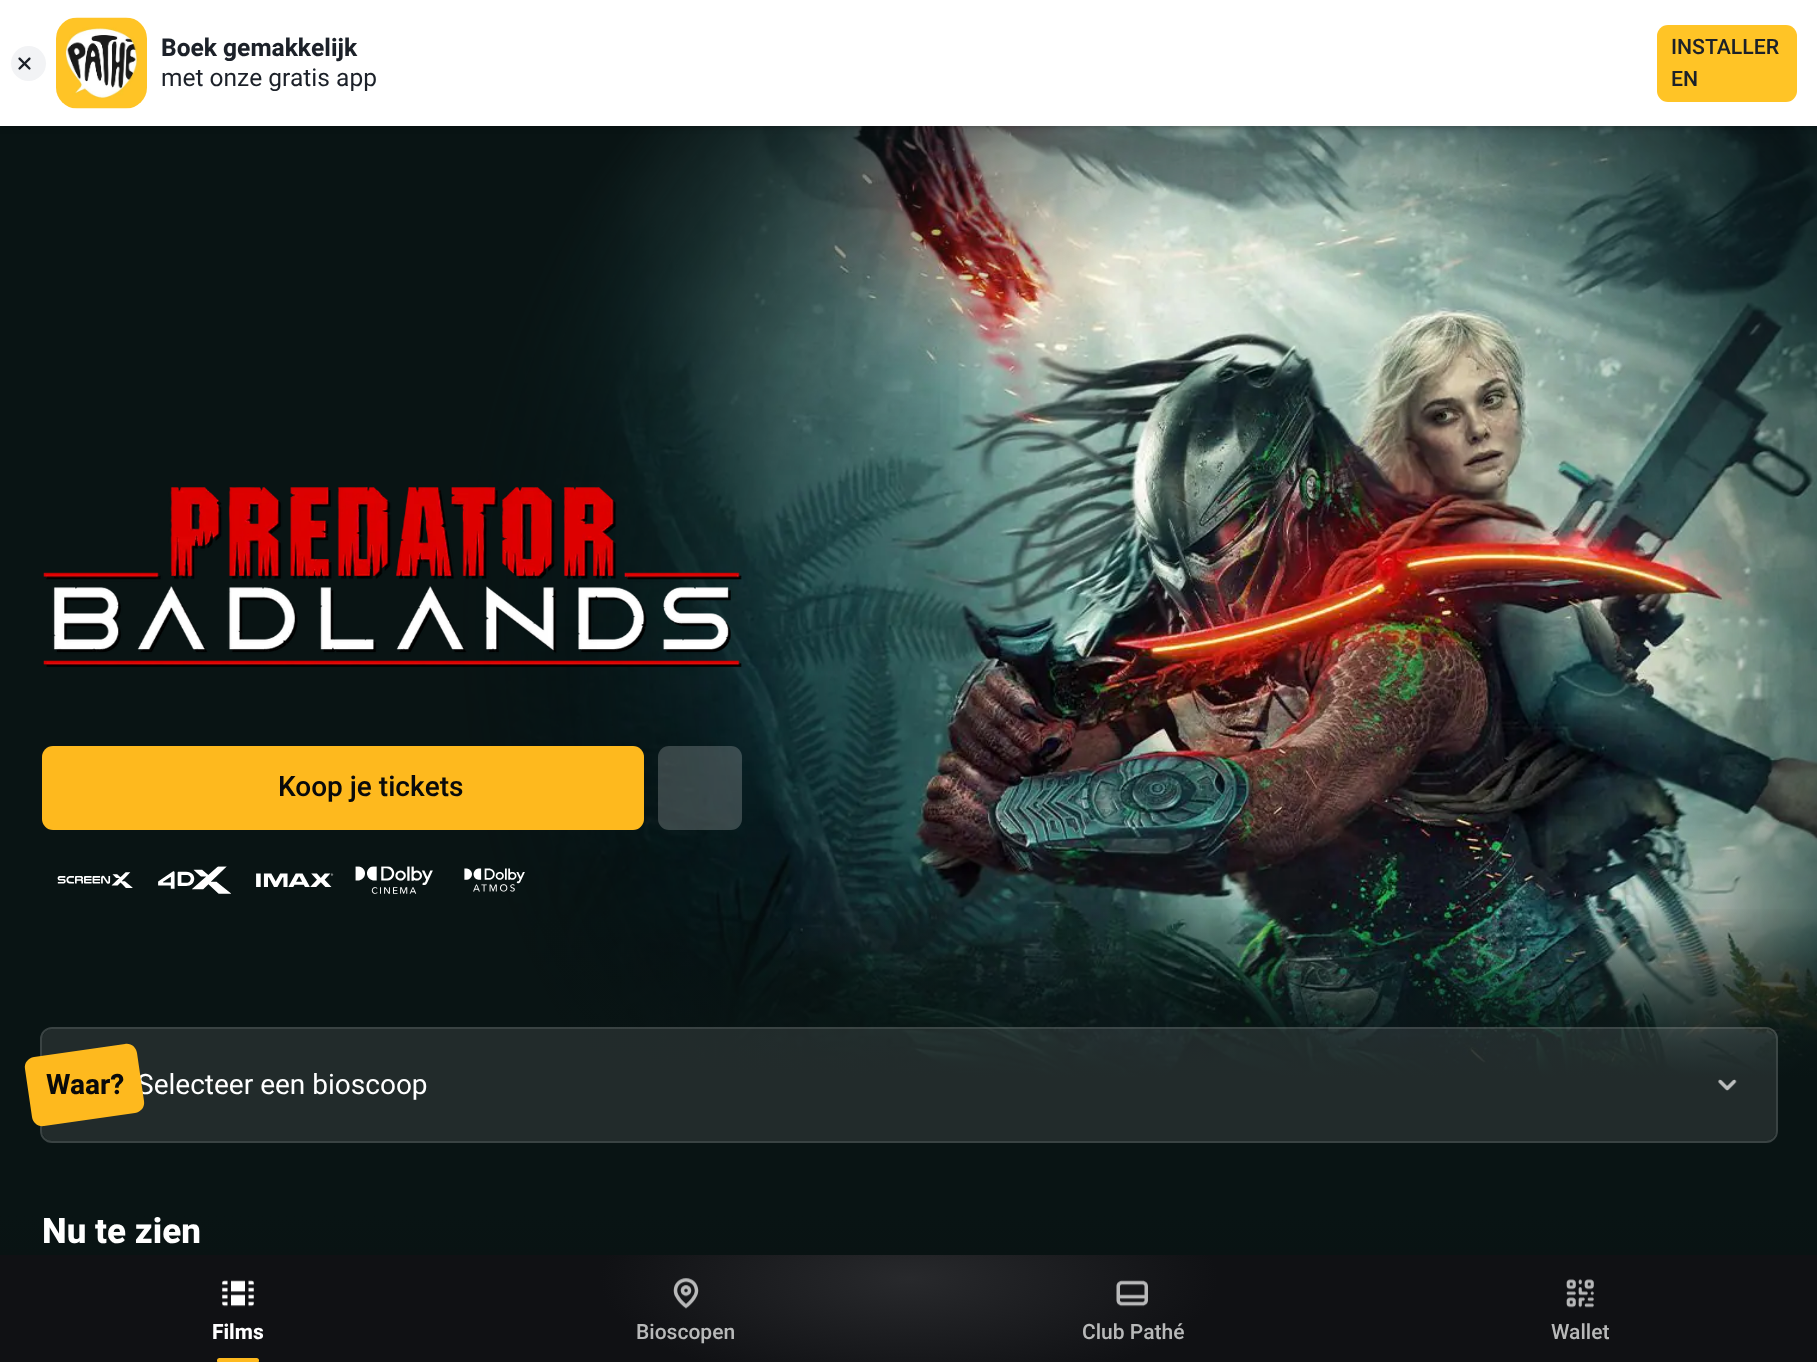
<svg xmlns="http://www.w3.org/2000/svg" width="1817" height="1362">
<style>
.a{font:bold 24.5px Heebo;fill:#1c2129}
.b{font:24.5px Heebo;fill:#1c2129}
.c{font:500 21.25px Heebo;fill:#1c2129}
.d{font:500 28px Heebo;fill:#090a0b}
.e{font:28px Heebo;fill:#fff}
.f{font:bold 28px Heebo;fill:#090a0b}
.g{font:800 35px Heebo;fill:#fff}
.h{font:bold 21px Heebo;fill:#fff}
.i{font:500 21px Heebo;fill:#b8b9b9}
</style>
<defs>
<linearGradient id="g1" gradientUnits="userSpaceOnUse" x1="909" y1="905" x2="909" y2="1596"><stop offset="0" stop-color="#091414" stop-opacity="0"/><stop offset="0.25" stop-color="#091414"/><stop offset="0.45" stop-color="#091414"/><stop offset="1" stop-color="#091414" stop-opacity="0"/></linearGradient>
<radialGradient id="g2" gradientUnits="userSpaceOnUse" cx="0" cy="0" r="1" gradientTransform="matrix(309 0 0 113 909 1279)"><stop offset="0" stop-color="#28292c"/><stop offset="1" stop-color="#101114"/></radialGradient>
</defs>
<rect width="100%" height="100%" fill="#090a0b"/>
<image href="3.png" x="0" y="126" width="1817" height="951"/>
<path fill="#00000066" filter="blur(3.5px)" d="M0 0h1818v126H0z"/>
<path fill="#fff" d="M0 0h1817v126H0z"/>
<circle fill="#f2f3f5" cx="28.5" cy="63.5" r="17.5"/>
<image href="1.png" x="18" y="57" width="13" height="13"/>
<image href="2.png" x="56" y="17" width="91" height="92"/>
<rect fill="#ffc426" x="1657" y="25" width="140" height="77" rx="11"/>
<image href="4.png" x="43" y="487" width="699" height="180"/>
<rect fill="#feb91e" x="42" y="746" width="602" height="84" rx="11"/>
<rect fill="#ffffff33" x="658" y="746" width="84" height="84" rx="11"/>
<image href="5.png" x="57" y="872" width="76" height="16"/>
<image href="6.png" x="158" y="866" width="73" height="28"/>
<image href="7.png" x="256" y="873" width="78" height="14"/>
<image href="8.png" x="355" y="866" width="78" height="28"/>
<image href="9.png" x="464" y="868" width="61" height="24"/>
<path fill="url(#g1)" d="M0 909h1817v346H0z"/>
<rect fill="none" stroke="#ffffff33" stroke-width="2" x="41" y="1028" width="1736" height="114" rx="11"/>
<rect fill="#ffffff1a" x="42" y="1029" width="1734" height="112" rx="11"/>
<image href="10.png" x="1718" y="1079" width="19" height="12"/>
<path fill="url(#g2)" d="M0 1255h1817v107H0z"/>
<image href="11.png" x="222" y="1280" width="32" height="27"/>
<rect fill="#feb91e" x="217" y="1358" width="42" height="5" rx="2.5"/>
<image href="12.png" x="673" y="1278" width="26" height="31"/>
<image href="13.png" x="1116" y="1280" width="32" height="27"/>
<image href="14.png" x="1566" y="1279" width="28" height="29"/>
<text class="a" x="161" y="56">Boek gemakkelijk</text>
<text class="b" x="161" y="86">met onze gratis app</text>
<text class="c" x="1671" y="54">INSTALLER</text>
<text class="c" x="1671" y="86">EN</text>
<text class="d" x="278" y="796">Koop je tickets</text>
<text class="e" x="137" y="1094">Selecteer een bioscoop</text>
<path fill="#feb91e" d="M34 1057l91-13c6-1 11 3 12 9l7 48c1 6-3 11-9 12l-91 13c-6 1-11-3-12-9l-7-48c-1-6 3-11 9-12z"/>
<text class="f" x="46" y="1094">Waar?</text>
<text class="g" x="42" y="1243">Nu te zien</text>
<text class="h" x="212" y="1339">Films</text>
<text class="i" x="636" y="1339">Bioscopen</text>
<text class="i" x="1082" y="1339">Club Pathé</text>
<text class="i" x="1551" y="1339">Wallet</text>
</svg>
